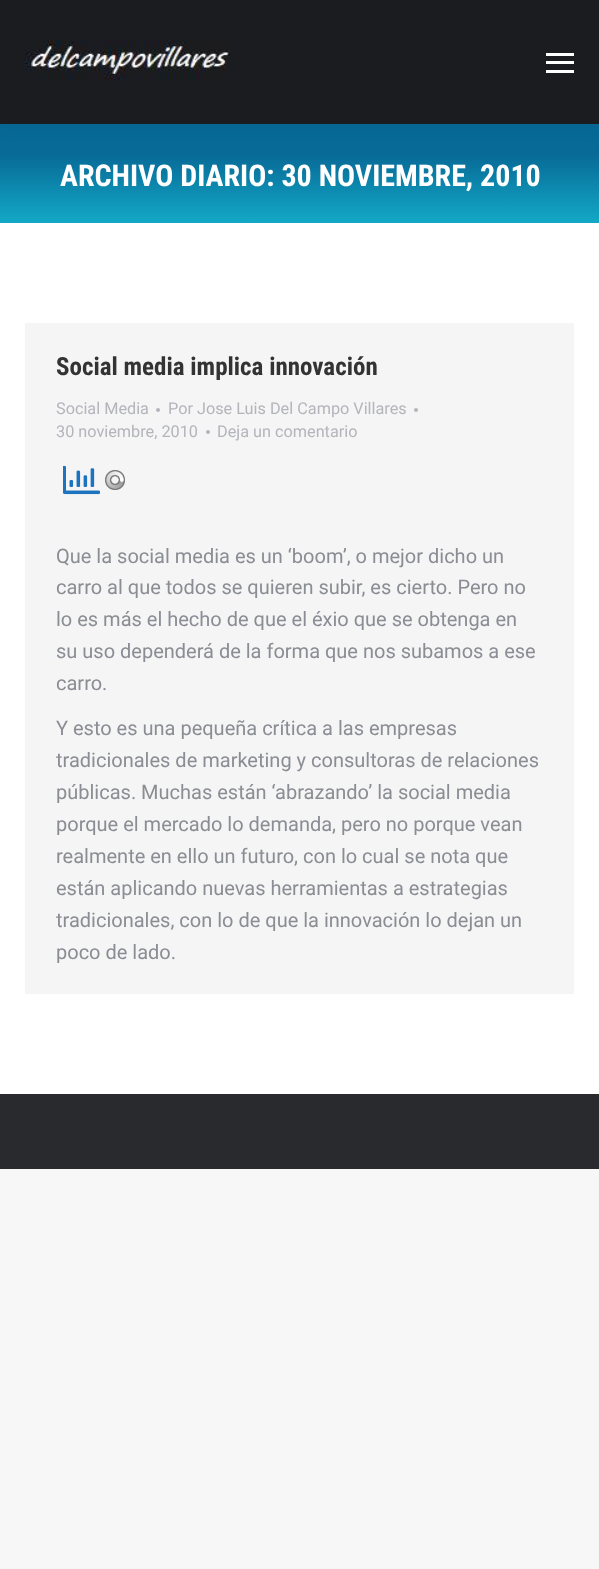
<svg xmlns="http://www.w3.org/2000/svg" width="599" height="1569">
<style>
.a{font:bold 30px Roboto Condensed;fill:#fff}
.b{font:bold 25px Roboto Condensed;fill:#333}
.c{font:16.25px Roboto;fill:#b4b5bb}
.d{font:20px Roboto;fill:#8b8d94}
</style>
<defs>
<linearGradient id="g1" gradientUnits="userSpaceOnUse" x1="300" y1="124" x2="300" y2="223"><stop offset="0.3" stop-color="#076a97"/><stop offset="1" stop-color="#13a8c6"/></linearGradient>
</defs>
<rect width="100%" height="100%" fill="#f7f7f7"/>
<path fill="#fff" d="M0 223h599v871H0z"/>
<path fill="url(#g1)" d="M0 124h599v99H0z"/>
<path fill="#00000012" filter="blur(9.5px)" d="M-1 -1h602v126H-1z"/>
<path fill="#1a1c20" d="M0 0h599v124H0z"/>
<image href="1.png" x="25" y="39" width="205" height="42"/>
<path fill="#fff" d="M546 53h28v3H546z"/>
<path fill="#fff" d="M546 61h28v3H546z"/>
<path fill="#fff" d="M546 70h28v3H546z"/>
<path fill="#f5f5f5" d="M25 323h549v671H25z"/>
<circle fill="#b4b5bb" cx="158" cy="410" r="2"/>
<circle fill="#b4b5bb" cx="416" cy="410" r="2"/>
<circle fill="#b4b5bb" cx="208" cy="432" r="2"/>
<image href="2.png" x="63" y="465" width="37" height="30"/>
<image href="3.png" x="105" y="470" width="20" height="20"/>
<path fill="#282a2d" d="M0 1094h599v75H0z"/>
<text class="a" x="60" y="186">ARCHIVO DIARIO: 30 NOVIEMBRE, 2010</text>
<text class="b" x="56" y="375">Social media implica innovación</text>
<text class="c" x="56" y="414">Social Media</text>
<text class="c" x="168" y="414">Por Jose Luis Del Campo Villares</text>
<text class="c" x="56" y="437">30 noviembre, 2010</text>
<text class="c" x="217" y="437">Deja un comentario</text>
<text class="d" x="56" y="563">Que la social media es un ‘boom’, o mejor dicho un</text>
<text class="d" x="56" y="594">carro al que todos se quieren subir, es cierto. Pero no</text>
<text class="d" x="56" y="626">lo es más el hecho de que el éxio que se obtenga en</text>
<text class="d" x="56" y="658">su uso dependerá de la forma que nos subamos a ese</text>
<text class="d" x="56" y="690">carro.</text>
<text class="d" x="56" y="735">Y esto es una pequeña crítica a las empresas</text>
<text class="d" x="56" y="767">tradicionales de marketing y consultoras de relaciones</text>
<text class="d" x="56" y="799">públicas. Muchas están ‘abrazando’ la social media</text>
<text class="d" x="56" y="831">porque el mercado lo demanda, pero no porque vean</text>
<text class="d" x="56" y="863">realmente en ello un futuro, con lo cual se nota que</text>
<text class="d" x="56" y="895">están aplicando nuevas herramientas a estrategias</text>
<text class="d" x="56" y="927">tradicionales, con lo de que la innovación lo dejan un</text>
<text class="d" x="56" y="959">poco de lado.</text>
</svg>
